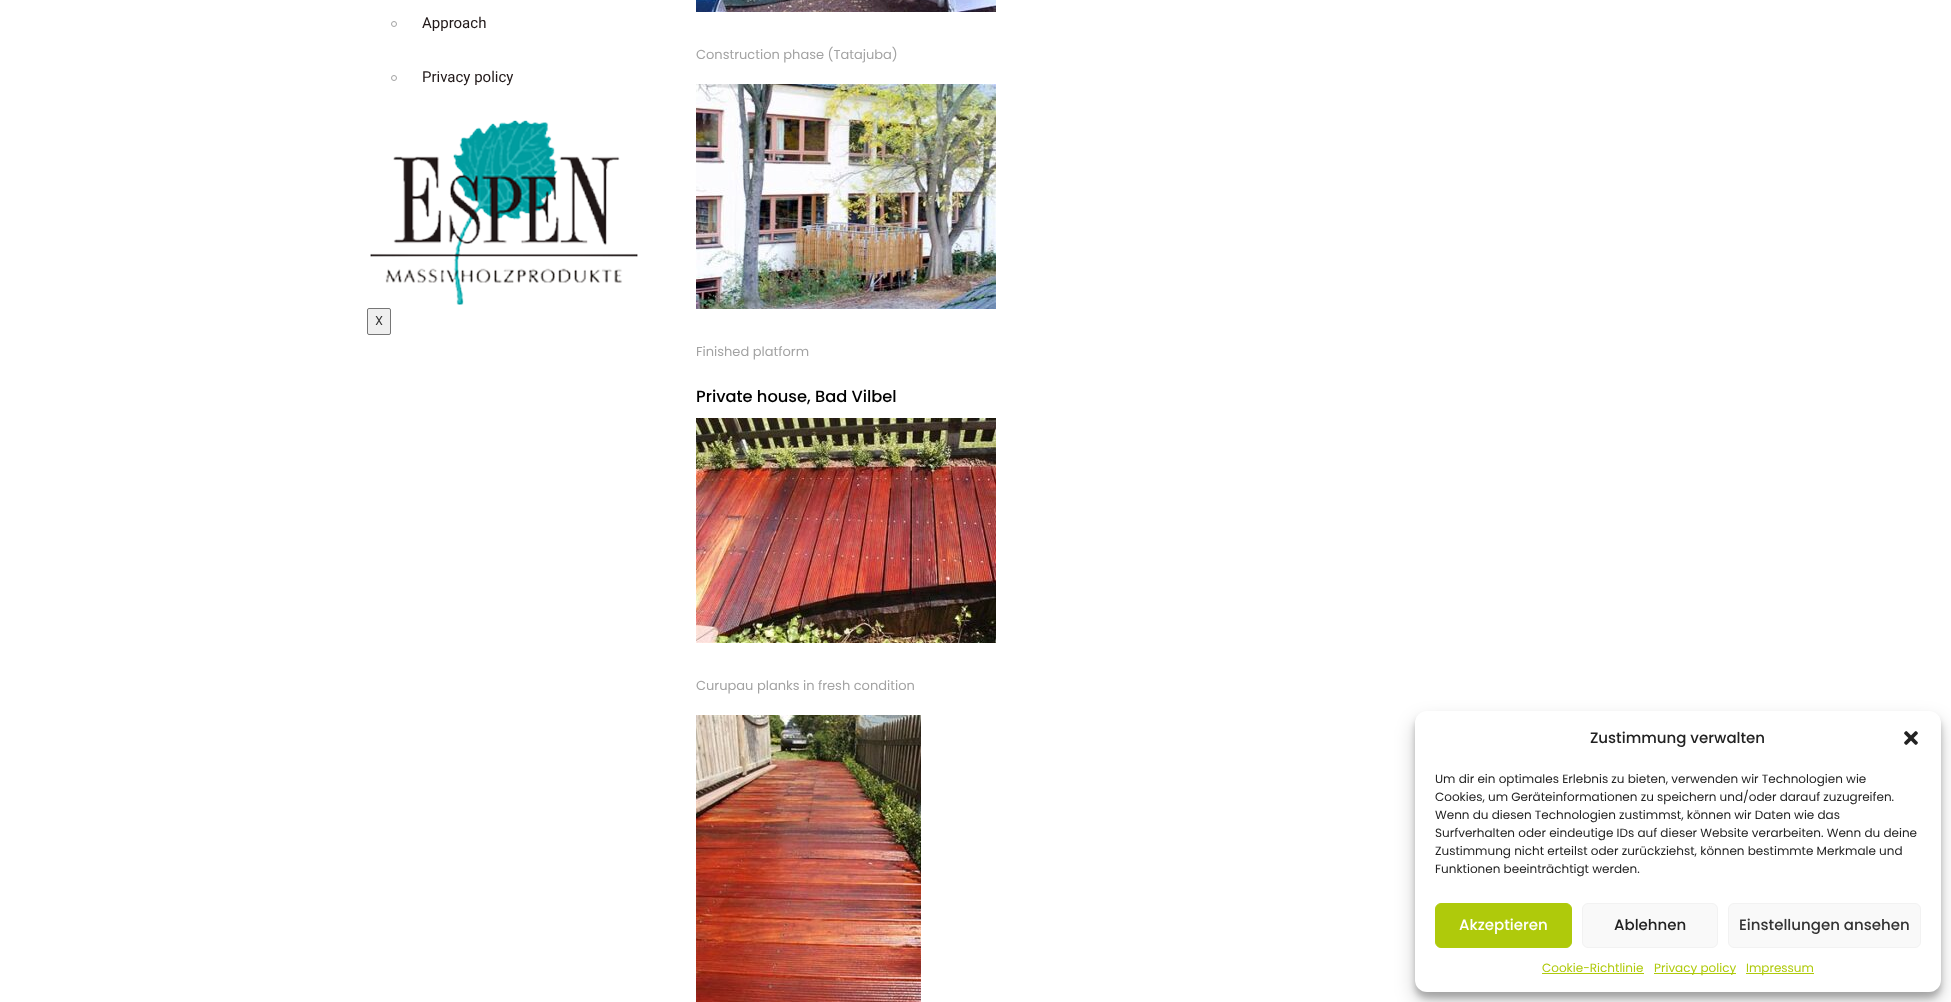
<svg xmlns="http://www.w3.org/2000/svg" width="1951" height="1002">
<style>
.a{font:15px Roboto;fill:#201818}
.b{font:13px Poppins;fill:#333}
.c{font:13px Poppins;fill:#a3a3a3}
.d{font:500 16.25px Poppins;fill:#000}
.e{font:500 15px Poppins;fill:#222}
.f{font:12px Poppins;fill:#222}
.g{font:500 15px Poppins;fill:#fff}
.h{font:500 15px Poppins;fill:#333}
.i{font:12px Poppins;fill:#afca0b}
</style>
<rect width="100%" height="100%" fill="#fff"/>
<circle fill="none" stroke="#a3a3a3" cx="394" cy="24" r="2.5"/>
<circle fill="none" stroke="#a3a3a3" cx="394" cy="78" r="2.5"/>
<image href="1.png" x="370" y="120" width="268" height="185"/>
<rect fill="#efefef" stroke="#767676" x="367.5" y="308.5" width="23" height="26" rx="1.5"/>
<image href="2.png" x="696" y="0" width="300" height="12"/>
<image href="3.png" x="696" y="84" width="300" height="225"/>
<image href="4.png" x="696" y="418" width="300" height="225"/>
<image href="5.png" x="696" y="715" width="225" height="287"/>
<rect fill="#0000003b" filter="blur(3px)" x="1415" y="717" width="526" height="281" rx="12"/>
<rect fill="#00000030" filter="blur(10px)" x="1415" y="721" width="526" height="281" rx="12"/>
<rect fill="#fff" x="1415" y="711" width="526" height="281" rx="12"/>
<image href="6.png" x="1904" y="731" width="14" height="14"/>
<rect fill="#afca0b" stroke="#afca0b" x="1435.5" y="903.5" width="136" height="44" rx="5.5"/>
<rect fill="#f9f9f9" stroke="#f2f2f2" x="1582.5" y="903.5" width="135" height="44" rx="5.5"/>
<rect fill="#f9f9f9" stroke="#f2f2f2" x="1728.5" y="903.5" width="192" height="44" rx="5.5"/>
<path fill="#afca0b" d="M1542 973h102v1H1542z"/>
<path fill="#afca0b" d="M1654 973h82v1H1654z"/>
<path fill="#afca0b" d="M1746 973h68v1H1746z"/>
<text class="a" x="422" y="28">Approach</text>
<text class="a" x="422" y="82">Privacy policy</text>
<text class="b" x="375" y="325">X</text>
<text class="c" x="696" y="59">Construction phase (Tatajuba)</text>
<text class="c" x="696" y="356">Finished platform</text>
<text class="d" x="696" y="402">Private house, Bad Vilbel</text>
<text class="c" x="696" y="690">Curupau planks in fresh condition</text>
<text class="e" x="1590" y="743">Zustimmung verwalten</text>
<text class="f" x="1435" y="783">Um dir ein optimales Erlebnis zu bieten, verwenden wir Technologien wie</text>
<text class="f" x="1435" y="801">Cookies, um Geräteinformationen zu speichern und/oder darauf zuzugreifen.</text>
<text class="f" x="1435" y="819">Wenn du diesen Technologien zustimmst, können wir Daten wie das</text>
<text class="f" x="1435" y="837">Surfverhalten oder eindeutige IDs auf dieser Website verarbeiten. Wenn du deine</text>
<text class="f" x="1435" y="855">Zustimmung nicht erteilst oder zurückziehst, können bestimmte Merkmale und</text>
<text class="f" x="1435" y="873">Funktionen beeinträchtigt werden.</text>
<text class="g" x="1459" y="930">Akzeptieren</text>
<text class="e" x="1614" y="930">Ablehnen</text>
<text class="h" x="1739" y="930">Einstellungen ansehen</text>
<text class="i" x="1542" y="972">Cookie-Richtlinie</text>
<text class="i" x="1654" y="972">Privacy policy</text>
<text class="i" x="1746" y="972">Impressum</text>
</svg>
